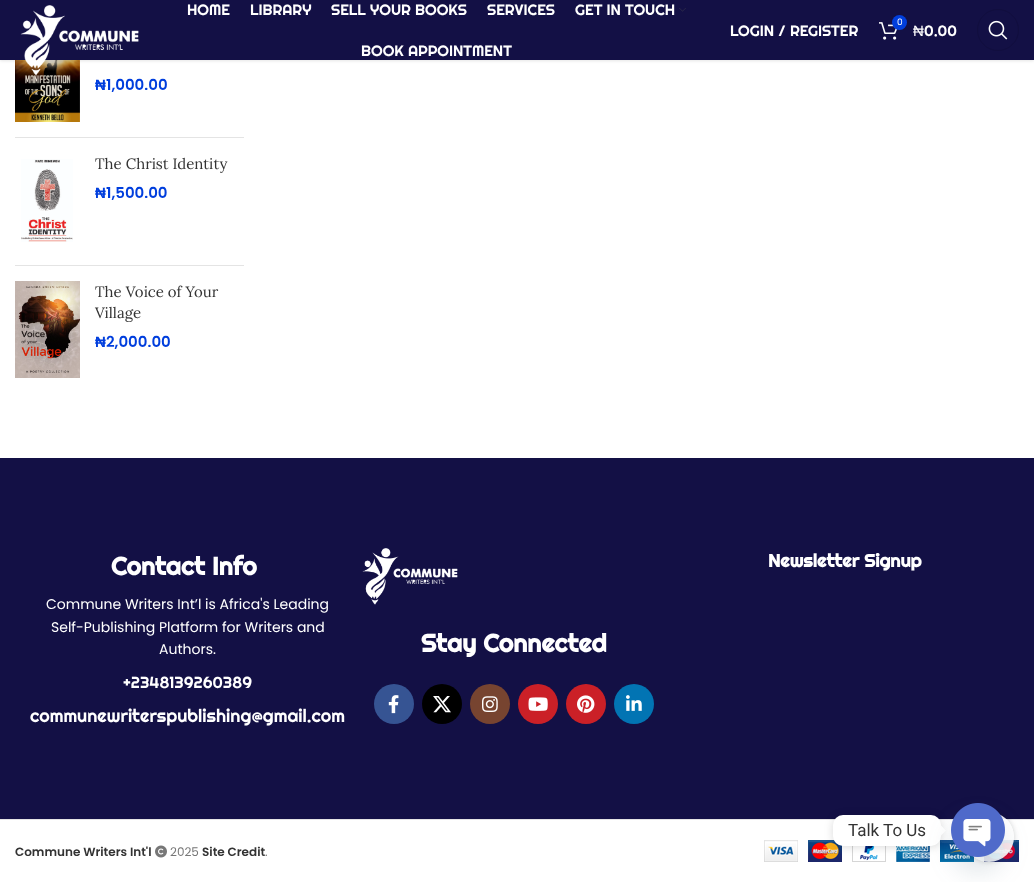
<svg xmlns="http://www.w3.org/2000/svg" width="1034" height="882">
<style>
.a{font:15px Righteous;fill:#fff}
.b{font:9px Poppins;fill:#fff}
.c{font:15px Liberation Sans;fill:#fff}
.d{font:bold 15px Liberation Sans;fill:#003edd}
.e{font:600 15px Poppins;fill:#003edd}
.f{font:15px Lora;fill:#333}
.g{font:bold 25px Righteous;fill:#fff}
.h{font:14px Poppins;fill:#fff}
.i{font:16px Righteous;fill:#fff}
.j{font:18px Righteous;fill:#fff}
.k{font:bold 18px Righteous;fill:#fff}
.l{font:600 12px Poppins;fill:#333}
.m{font:12px Poppins;fill:#777}
.n{font:17px Roboto;fill:#333}
</style>
<defs>
<clipPath id="clip1"><path d="M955 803h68v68h-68zm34 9c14 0 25 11 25 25c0 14-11 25-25 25c-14 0-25-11-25-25c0-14 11-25 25-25z" clip-rule="evenodd"/></clipPath>
</defs>
<rect width="100%" height="100%" fill="#fff"/>
<image href="5.png" x="15" y="60" width="65" height="62"/>
<path fill="#0000001a" filter="blur(1.5px)" d="M0 1h1034v60H0z"/>
<path fill="#131045" d="M0 0h1034v60H0z"/>
<image href="1.png" x="20" y="5" width="119" height="71"/>
<image href="2.png" x="679" y="8" width="7" height="4"/>
<image href="3.png" x="879" y="22" width="19" height="18"/>
<circle fill="#003edd" cx="899.5" cy="22.5" r="7.5"/>
<circle fill="none" stroke="#110e3e" cx="998" cy="30" r="20.5"/>
<image href="4.png" x="988" y="20" width="20" height="20"/>
<path fill="#e4e4e4" d="M15 137h229v1H15z"/>
<path fill="#e4e4e4" d="M15 265h229v1H15z"/>
<image href="6.png" x="21" y="159" width="52" height="83"/>
<image href="7.png" x="15" y="281" width="65" height="97"/>
<path fill="#131045" d="M0 458h1034v361H0z"/>
<image href="8.png" x="362" y="548" width="96" height="57"/>
<circle fill="#365493" cx="394" cy="704" r="20"/>
<image href="9.png" x="388" y="695" width="11" height="19"/>
<circle fill="#000" cx="442" cy="704" r="20"/>
<image href="10.png" x="433" y="696" width="18" height="17"/>
<circle fill="#774430" cx="490" cy="704" r="20"/>
<image href="11.png" x="482" y="696" width="16" height="16"/>
<circle fill="#cb2027" cx="538" cy="704" r="20"/>
<image href="12.png" x="528" y="697" width="20" height="14"/>
<circle fill="#cb2027" cx="586" cy="704" r="20"/>
<image href="13.png" x="577" y="695" width="18" height="18"/>
<circle fill="#0274b3" cx="634" cy="704" r="20"/>
<image href="14.png" x="626" y="695" width="16" height="16"/>
<path fill="#e4e4e4" d="M0 819h1034v1H0z"/>
<image href="15.png" x="155" y="845" width="12" height="13"/>
<image href="16.png" x="764" y="840" width="255" height="22"/>
<g clip-path="url(#clip1)">
<rect fill="#0000002b" filter="blur(2.5px)" x="964" y="812" width="50" height="50" rx="25"/>
</g>
<circle fill="#ffffffe6" cx="989" cy="837" r="25"/>
<rect fill="#00000026" filter="blur(4px)" x="833" y="816" width="108" height="31" rx="10"/>
<rect fill="#fff" x="833" y="815" width="108" height="31" rx="10"/>
<path fill="#fff" d="M941 835.5v-10l5 5z"/>
<rect fill="#49687e29" filter="blur(12px)" x="951" y="819" width="54" height="54" rx="27"/>
<image href="17.png" x="951" y="803" width="54" height="54"/>
<text class="a" x="187" y="15">HOME</text>
<text class="a" x="250" y="15">LIBRARY</text>
<text class="a" x="331" y="15">SELL YOUR BOOKS</text>
<text class="a" x="487" y="15">SERVICES</text>
<text class="a" x="575" y="15">GET IN TOUCH</text>
<text class="a" x="361" y="56">BOOK APPOINTMENT</text>
<text class="a" x="730" y="36">LOGIN / REGISTER</text>
<text class="b" x="897" y="25">0</text>
<text class="c" x="913" y="36">₦</text>
<text class="a" x="924" y="36">0.00</text>
<text class="d" x="95" y="90">₦</text>
<text class="e" x="106" y="90">1,000.00</text>
<text class="f" x="95" y="169">The Christ Identity</text>
<text class="d" x="95" y="198">₦</text>
<text class="e" x="106" y="198">1,500.00</text>
<text class="f" x="95" y="297">The Voice of Your</text>
<text class="f" x="95" y="318">Village</text>
<text class="d" x="95" y="347">₦</text>
<text class="e" x="106" y="347">2,000.00</text>
<text class="g" x="111" y="575">Contact Info</text>
<text class="h" x="46" y="609">Commune Writers Int’l is Africa's Leading</text>
<text class="h" x="51" y="632">Self-Publishing Platform for Writers and</text>
<text class="h" x="159" y="654">Authors.</text>
<text class="i" x="123" y="688">+2348139260389</text>
<text class="j" x="30" y="722">communewriterspublishing@gmail.com</text>
<text class="g" x="421" y="652">Stay Connected</text>
<text class="k" x="768" y="567">Newsletter Signup</text>
<text class="l" x="15" y="856">Commune Writers Int'l</text>
<text class="m" x="170" y="856">2025</text>
<text class="l" x="202" y="856">Site Credit</text>
<text class="m" x="265" y="856">.</text>
<text class="n" x="848" y="836">Talk To Us</text>
</svg>
